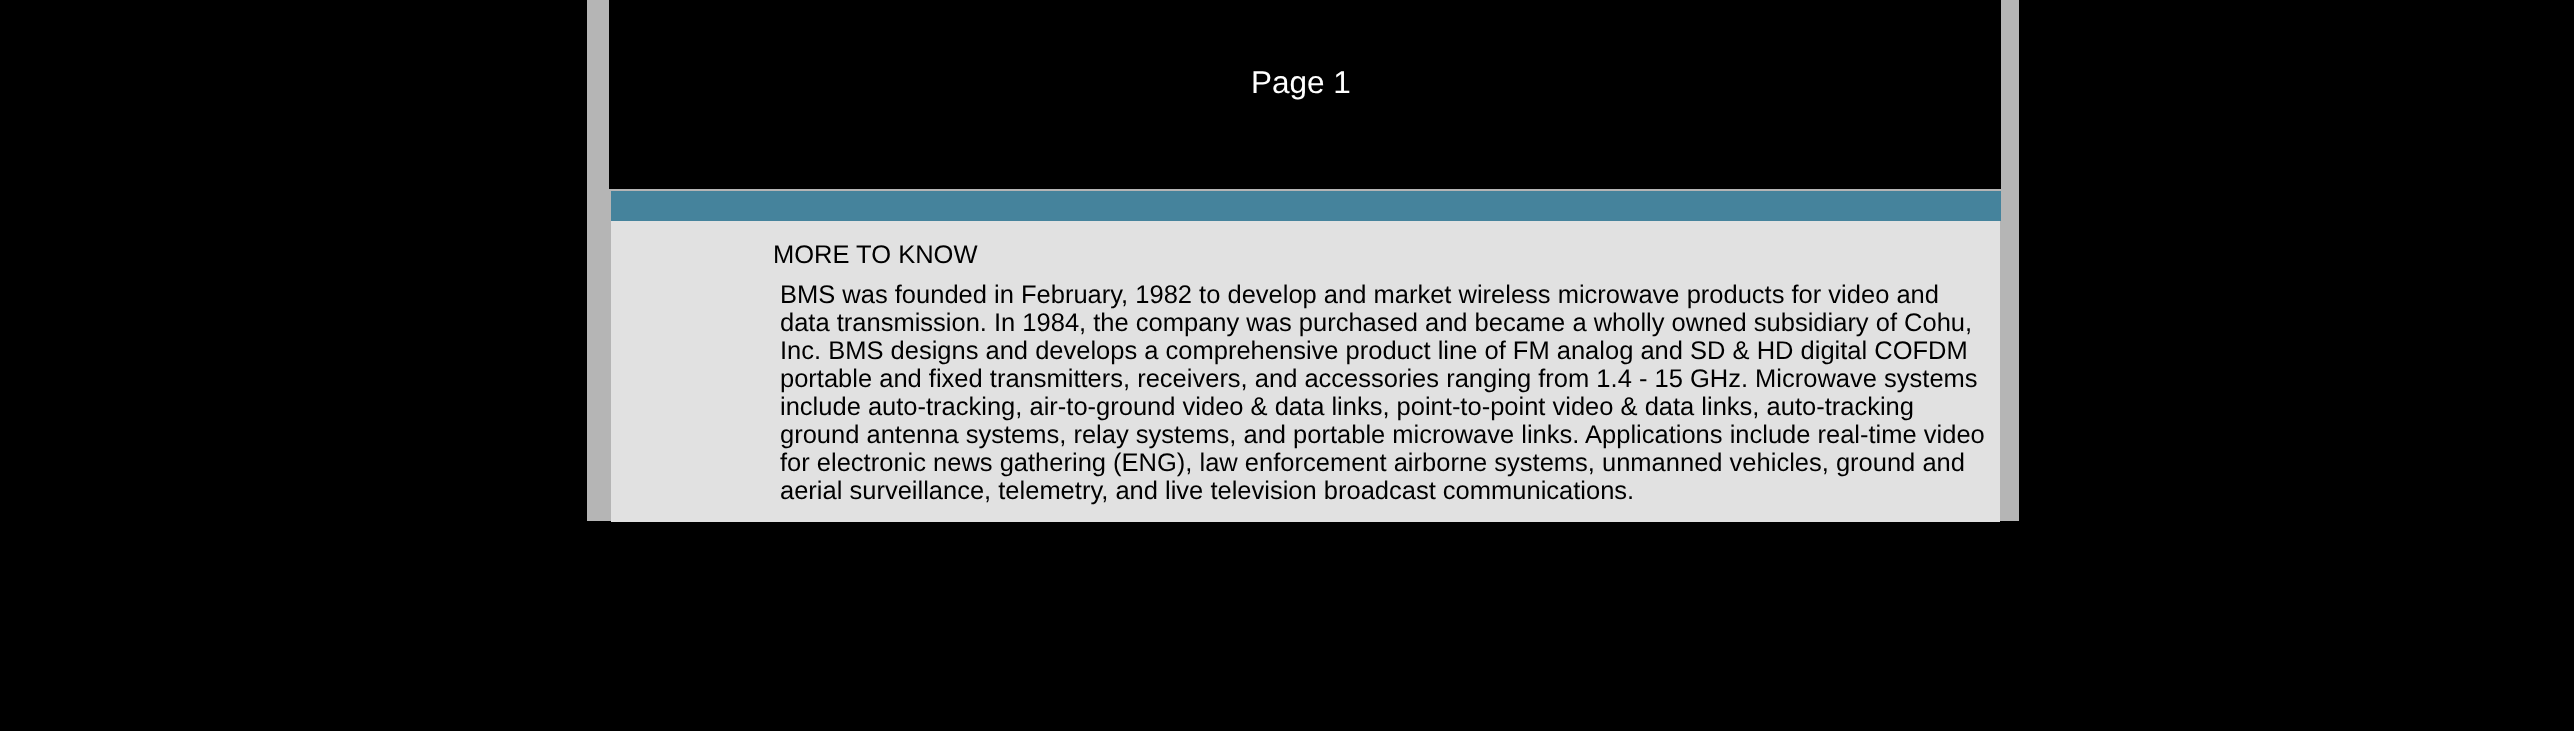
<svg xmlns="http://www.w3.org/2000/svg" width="2574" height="731">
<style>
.a{font:31.5px Liberation Sans;fill:#fff}
.b{font:25.5px Liberation Sans;fill:#000}
</style>
<rect width="100%" height="100%" fill="#000"/>
<path fill="#b5b5b5" d="M587 0h1432v521H587z"/>
<path fill="#000" d="M609 0h1392v189H609z"/>
<path fill="#45839c" d="M611 191h1390v30H611z"/>
<path fill="#e1e1e1" d="M611 221h1389v301H611z"/>
<text class="a" x="1251" y="93">Page 1</text>
<text class="b" x="773" y="263">MORE TO KNOW</text>
<text class="b" x="780" y="303">BMS was founded in February, 1982 to develop and market wireless microwave products for video and</text>
<text class="b" x="780" y="331">data transmission. In 1984, the company was purchased and became a wholly owned subsidiary of Cohu,</text>
<text class="b" x="780" y="359">Inc. BMS designs and develops a comprehensive product line of FM analog and SD &amp; HD digital COFDM</text>
<text class="b" x="780" y="387">portable and fixed transmitters, receivers, and accessories ranging from 1.4 - 15 GHz. Microwave systems</text>
<text class="b" x="780" y="415">include auto-tracking, air-to-ground video &amp; data links, point-to-point video &amp; data links, auto-tracking</text>
<text class="b" x="780" y="443">ground antenna systems, relay systems, and portable microwave links. Applications include real-time video</text>
<text class="b" x="780" y="471">for electronic news gathering (ENG), law enforcement airborne systems, unmanned vehicles, ground and</text>
<text class="b" x="780" y="499">aerial surveillance, telemetry, and live television broadcast communications.</text>
</svg>
